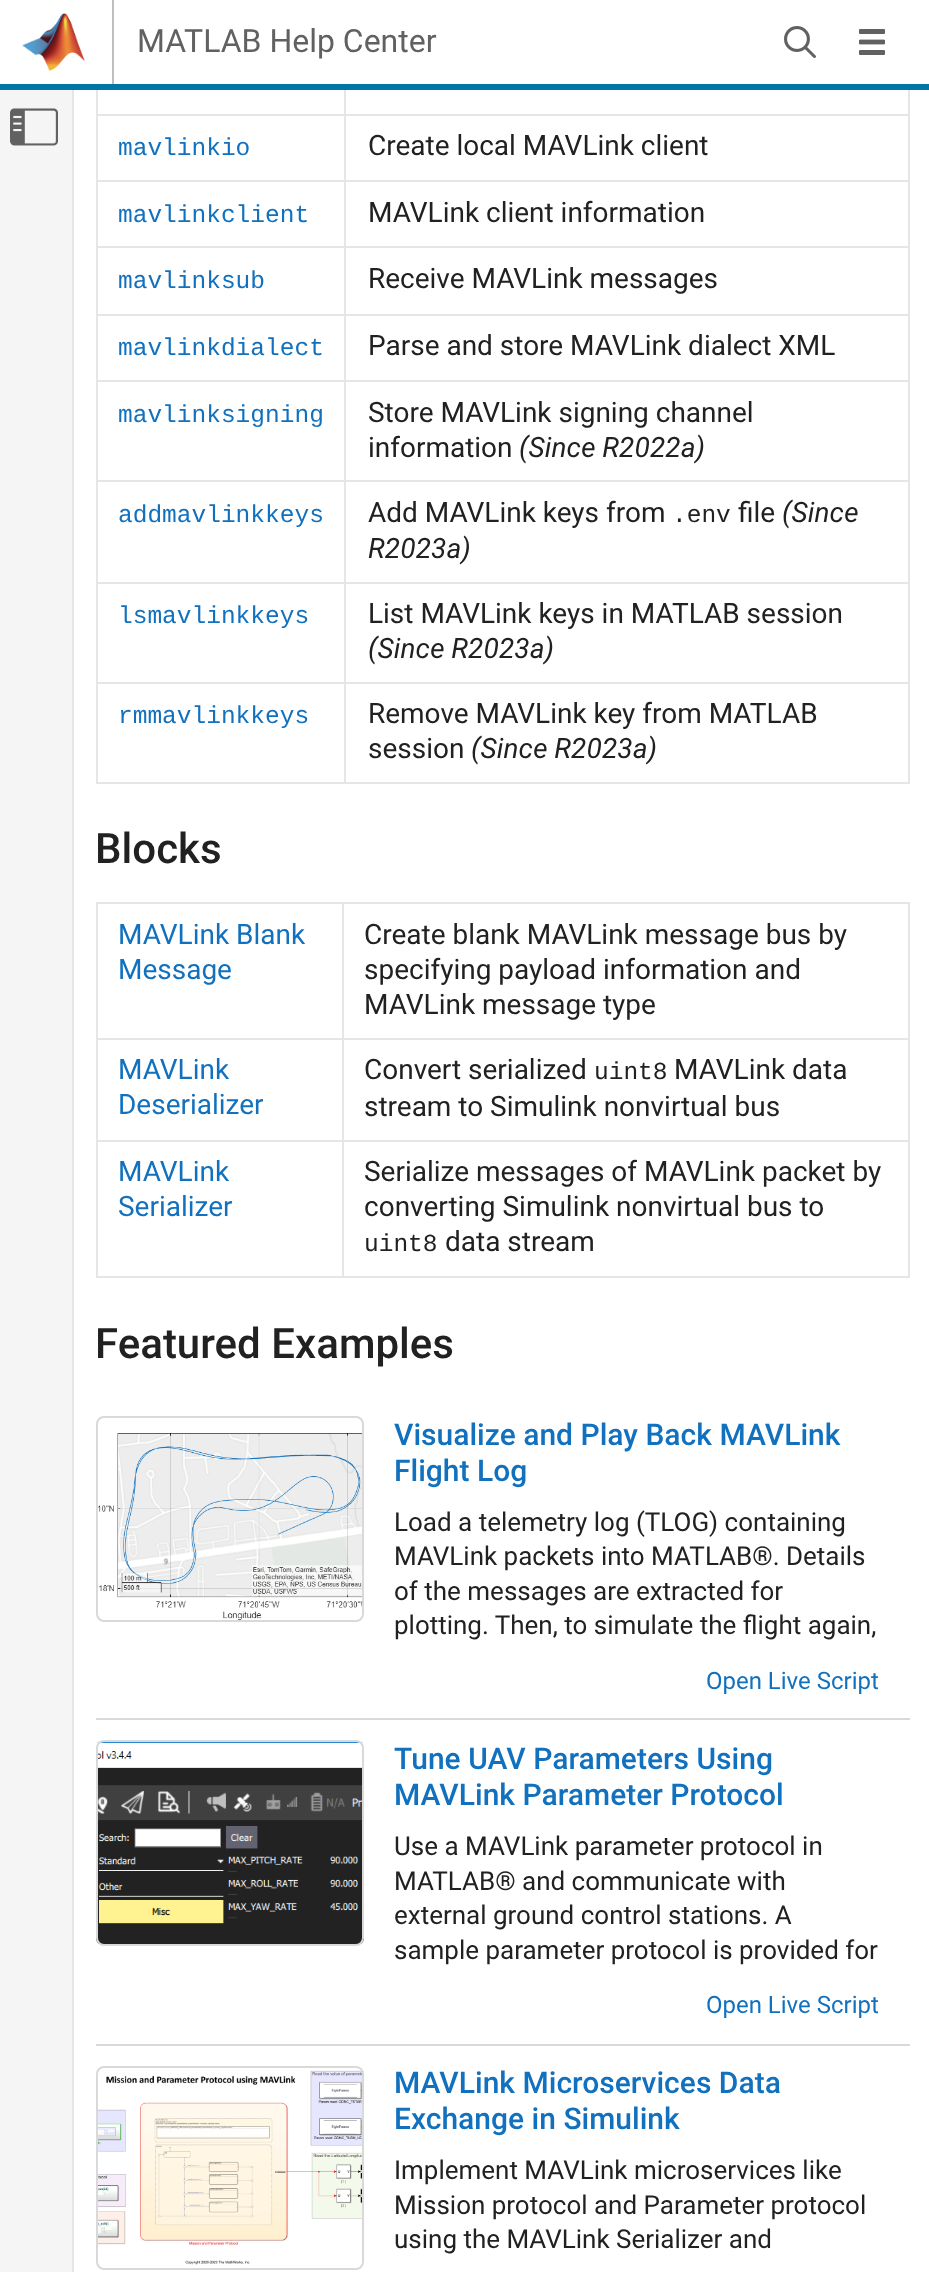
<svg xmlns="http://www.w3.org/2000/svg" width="929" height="2272">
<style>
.a{font:32px Roboto;fill:#616161}
.b{font:24.5px Liberation Mono;fill:#1171be}
.c{font:28px Roboto;fill:#212121}
.d{font:italic 28px Roboto;fill:#212121}
.e{font:24.5px Liberation Mono;fill:#212121}
.f{font:500 42px Roboto;fill:#212121}
.g{font:28px Roboto;fill:#1171be}
.h{font:500 30px Roboto;fill:#1171be}
.i{font:26px Roboto;fill:#212121}
.j{font:24px Roboto;fill:#1171be}
</style>
<rect width="100%" height="100%" fill="#f5f5f5"/>
<path fill="#fff" d="M0 0h929v84H0z"/>
<path fill="#0076a8" d="M0 84h929v6H0z"/>
<path fill="#bfbfbf" d="M112 0h2v84H112z"/>
<image href="1.png" x="22" y="13" width="63" height="58"/>
<image href="2.png" x="784" y="26" width="32" height="32"/>
<image href="3.png" x="859" y="29" width="26" height="26"/>
<path fill="#e6e6e6" d="M72 90h2v2182H72z"/>
<image href="4.png" x="10" y="108" width="48" height="38"/>
<path fill="#fff" d="M74 90h855v2182H74z"/>
<path fill="#e6e6e6" d="M96 114h814v2H96z"/>
<path fill="#e6e6e6" d="M96 180h814v2H96z"/>
<path fill="#e6e6e6" d="M96 246h814v2H96z"/>
<path fill="#e6e6e6" d="M96 314h814v2H96z"/>
<path fill="#e6e6e6" d="M96 380h814v2H96z"/>
<path fill="#e6e6e6" d="M96 480h814v2H96z"/>
<path fill="#e6e6e6" d="M96 582h814v2H96z"/>
<path fill="#e6e6e6" d="M96 682h814v2H96z"/>
<path fill="#e6e6e6" d="M96 782h814v2H96z"/>
<path fill="#e6e6e6" d="M96 90h2v694H96z"/>
<path fill="#e6e6e6" d="M908 90h2v694H908z"/>
<path fill="#e6e6e6" d="M344 90h2v694H344z"/>
<path fill="#e6e6e6" d="M96 902h814v2H96z"/>
<path fill="#e6e6e6" d="M96 1038h814v2H96z"/>
<path fill="#e6e6e6" d="M96 1140h814v2H96z"/>
<path fill="#e6e6e6" d="M96 1276h814v2H96z"/>
<path fill="#e6e6e6" d="M96 902h2v376H96z"/>
<path fill="#e6e6e6" d="M908 902h2v376H908z"/>
<path fill="#e6e6e6" d="M342 902h2v376H342z"/>
<image href="5.png" x="96" y="1433" width="268" height="187"/>
<rect fill="none" stroke="#d9d9d9" stroke-width="2" x="97" y="1417" width="266" height="204" rx="7"/>
<path fill="#d9d9d9" d="M96 1718h814v2H96z"/>
<image href="6.png" x="96" y="1742" width="268" height="202"/>
<rect fill="none" stroke="#d9d9d9" stroke-width="2" x="97" y="1741" width="266" height="204" rx="7"/>
<path fill="#d9d9d9" d="M96 2044h814v2H96z"/>
<image href="7.png" x="96" y="2070" width="268" height="195"/>
<rect fill="none" stroke="#d9d9d9" stroke-width="2" x="97" y="2067" width="266" height="202" rx="7"/>
<text class="a" x="137" y="52">MATLAB Help Center</text>
<text class="b" x="118" y="155">mavlinkio</text>
<text class="c" x="368" y="155">Create local MAVLink client</text>
<text class="b" x="118" y="222">mavlinkclient</text>
<text class="c" x="368" y="222">MAVLink client information</text>
<text class="b" x="118" y="288">mavlinksub</text>
<text class="c" x="368" y="288">Receive MAVLink messages</text>
<text class="b" x="118" y="355">mavlinkdialect</text>
<text class="c" x="368" y="355">Parse and store MAVLink dialect XML</text>
<text class="b" x="118" y="422">mavlinksigning</text>
<text class="c" x="368" y="422">Store MAVLink signing channel</text>
<text class="c" x="368" y="457">information</text>
<text class="d" x="519" y="457">(Since R2022a)</text>
<text class="b" x="118" y="522">addmavlinkkeys</text>
<text class="c" x="368" y="522">Add MAVLink keys from</text>
<text class="e" x="672" y="522">.env</text>
<text class="c" x="738" y="522">file</text>
<text class="d" x="782" y="522">(Since</text>
<text class="d" x="368" y="558">R2023a)</text>
<text class="b" x="118" y="623">lsmavlinkkeys</text>
<text class="c" x="368" y="623">List MAVLink keys in MATLAB session</text>
<text class="d" x="368" y="658">(Since R2023a)</text>
<text class="b" x="118" y="723">rmmavlinkkeys</text>
<text class="c" x="368" y="723">Remove MAVLink key from MATLAB</text>
<text class="c" x="368" y="758">session</text>
<text class="d" x="471" y="758">(Since R2023a)</text>
<text class="f" x="95" y="863">Blocks</text>
<text class="g" x="118" y="944">MAVLink Blank</text>
<text class="g" x="118" y="979">Message</text>
<text class="c" x="364" y="944">Create blank MAVLink message bus by</text>
<text class="c" x="364" y="979">specifying payload information and</text>
<text class="c" x="364" y="1014">MAVLink message type</text>
<text class="g" x="118" y="1079">MAVLink</text>
<text class="g" x="118" y="1114">Deserializer</text>
<text class="c" x="364" y="1079">Convert serialized</text>
<text class="e" x="594" y="1079">uint8</text>
<text class="c" x="674" y="1079">MAVLink data</text>
<text class="c" x="364" y="1116">stream to Simulink nonvirtual bus</text>
<text class="g" x="118" y="1181">MAVLink</text>
<text class="g" x="118" y="1216">Serializer</text>
<text class="c" x="364" y="1181">Serialize messages of MAVLink packet by</text>
<text class="c" x="364" y="1216">converting Simulink nonvirtual bus to</text>
<text class="e" x="364" y="1251">uint8</text>
<text class="c" x="445" y="1251">data stream</text>
<text class="f" x="95" y="1358">Featured Examples</text>
<text class="h" x="394" y="1445">Visualize and Play Back MAVLink</text>
<text class="h" x="394" y="1481">Flight Log</text>
<text class="i" x="394" y="1531">Load a telemetry log (TLOG) containing</text>
<text class="i" x="394" y="1565">MAVLink packets into MATLAB®. Details</text>
<text class="i" x="394" y="1600">of the messages are extracted for</text>
<text class="i" x="394" y="1634">plotting. Then, to simulate the flight again,</text>
<text class="j" x="706" y="1689">Open Live Script</text>
<text class="h" x="394" y="1769">Tune UAV Parameters Using</text>
<text class="h" x="394" y="1805">MAVLink Parameter Protocol</text>
<text class="i" x="394" y="1855">Use a MAVLink parameter protocol in</text>
<text class="i" x="394" y="1890">MATLAB® and communicate with</text>
<text class="i" x="394" y="1924">external ground control stations. A</text>
<text class="i" x="394" y="1959">sample parameter protocol is provided for</text>
<text class="j" x="706" y="2013">Open Live Script</text>
<text class="h" x="394" y="2093">MAVLink Microservices Data</text>
<text class="h" x="394" y="2129">Exchange in Simulink</text>
<text class="i" x="394" y="2179">Implement MAVLink microservices like</text>
<text class="i" x="394" y="2214">Mission protocol and Parameter protocol</text>
<text class="i" x="394" y="2248">using the MAVLink Serializer and</text>
</svg>
